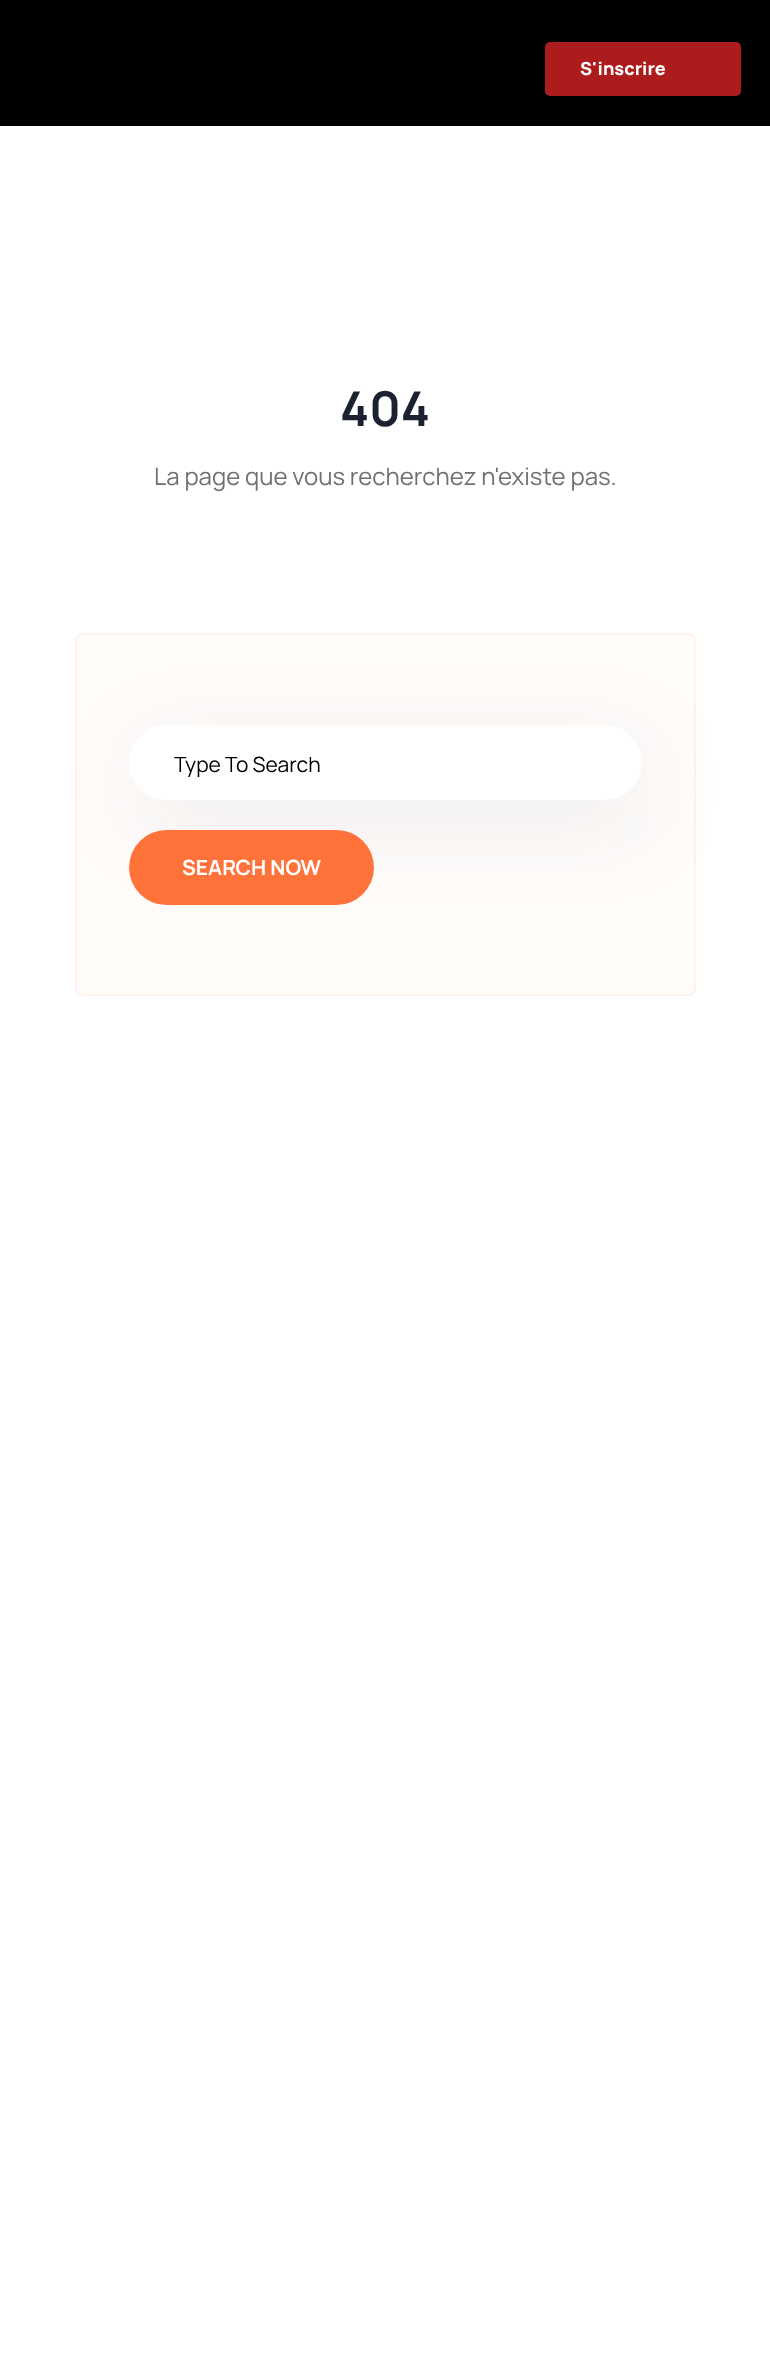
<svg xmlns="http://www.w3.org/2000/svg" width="770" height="2356">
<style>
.a{font:800 18px Manrope;fill:#fff}
.b{font:bold 48px Manrope;fill:#1b212f}
.c{font:24px Manrope;fill:#707070}
.d{font:21px Manrope;fill:#000}
.e{font:bold 21px Manrope;fill:#fff}
</style>
<rect width="100%" height="100%" fill="#fff"/>
<path fill="#000" d="M0 0h770v126H0z"/>
<rect fill="#ad1c1c" x="545" y="42" width="196" height="54" rx="5"/>
<rect fill="#fffcfa" stroke="#fff2ed" stroke-width="2" x="76" y="634" width="619" height="361" rx="7"/>
<rect fill="#1b212f14" filter="blur(45px)" x="137" y="747" width="513" height="75" rx="37.5"/>
<rect fill="#fff" x="129" y="725" width="513" height="75" rx="37.5"/>
<rect fill="#ff723a" x="129" y="830" width="245" height="75" rx="37.5"/>
<text class="a" x="580" y="75">S'inscrire</text>
<text class="b" x="340" y="426">404</text>
<text class="c" x="154" y="485">La page que vous recherchez n'existe pas.</text>
<text class="d" x="174" y="772">Type To Search</text>
<text class="e" x="182" y="875">SEARCH NOW</text>
</svg>
